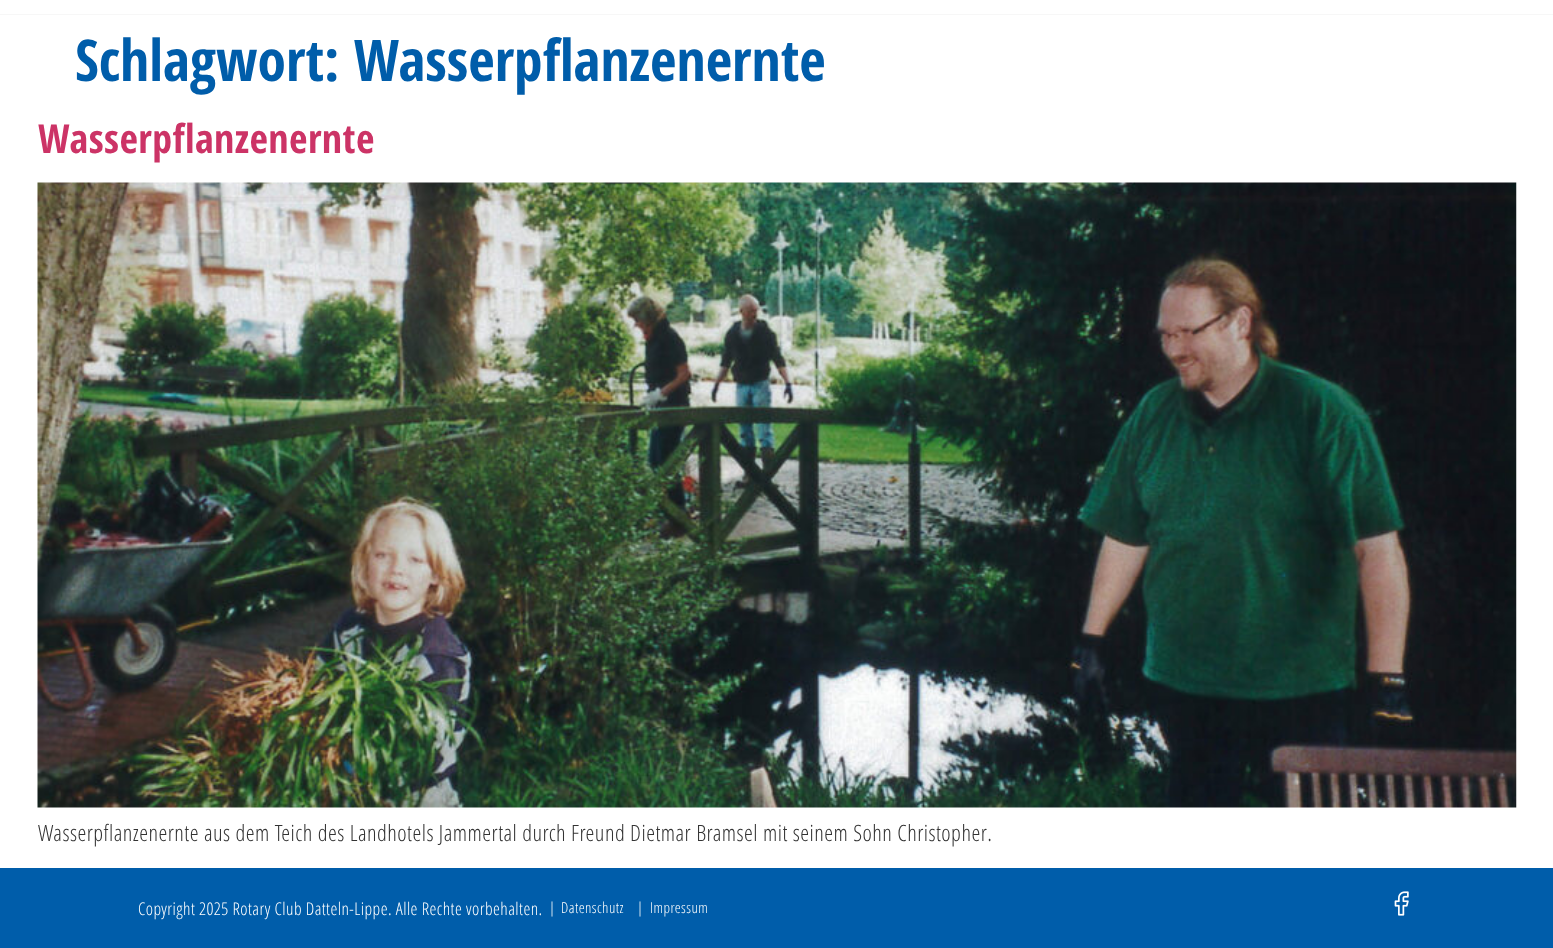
<svg xmlns="http://www.w3.org/2000/svg" width="1553" height="948">
<style>
.a{font:bold 57.5px Open Sans Condensed;fill:#005daa}
.b{font:bold 40px Open Sans Condensed;letter-spacing:0.45px;fill:#c36}
.c{font:300 22.5px Open Sans;letter-spacing:0.45px;fill:#333}
.d{font:300 17.5px Open Sans;letter-spacing:0.45px;fill:#fff}
.e{font:300 15px Open Sans;letter-spacing:0.45px;fill:#fff}
</style>
<rect width="100%" height="100%" fill="#fff"/>
<path fill="#f7f7f7" d="M0 14h1553v1H0z"/>
<image href="1.png" x="37" y="182" width="1480" height="626"/>
<path fill="#005daa" d="M0 868h1553v80H0z"/>
<image href="2.png" x="1394" y="891" width="15" height="25"/>
<text class="a" x="75" y="81">Schlagwort: Wasserpflanzenernte</text>
<text class="b" x="38" y="153">Wasserpflanzenernte</text>
<text class="c" x="38" y="841" word-spacing="0.25">Wasserpflanzenernte aus dem Teich des Landhotels Jammertal durch Freund Dietmar Bramsel mit seinem Sohn Christopher.</text>
<text class="d" x="138" y="915">Copyright 2025 Rotary Club Datteln-Lippe. Alle Rechte vorbehalten.</text>
<text class="e" x="549" y="913">|</text>
<text class="e" x="561" y="913">Datenschutz</text>
<text class="e" x="637" y="913">|</text>
<text class="e" x="650" y="913">Impressum</text>
</svg>
